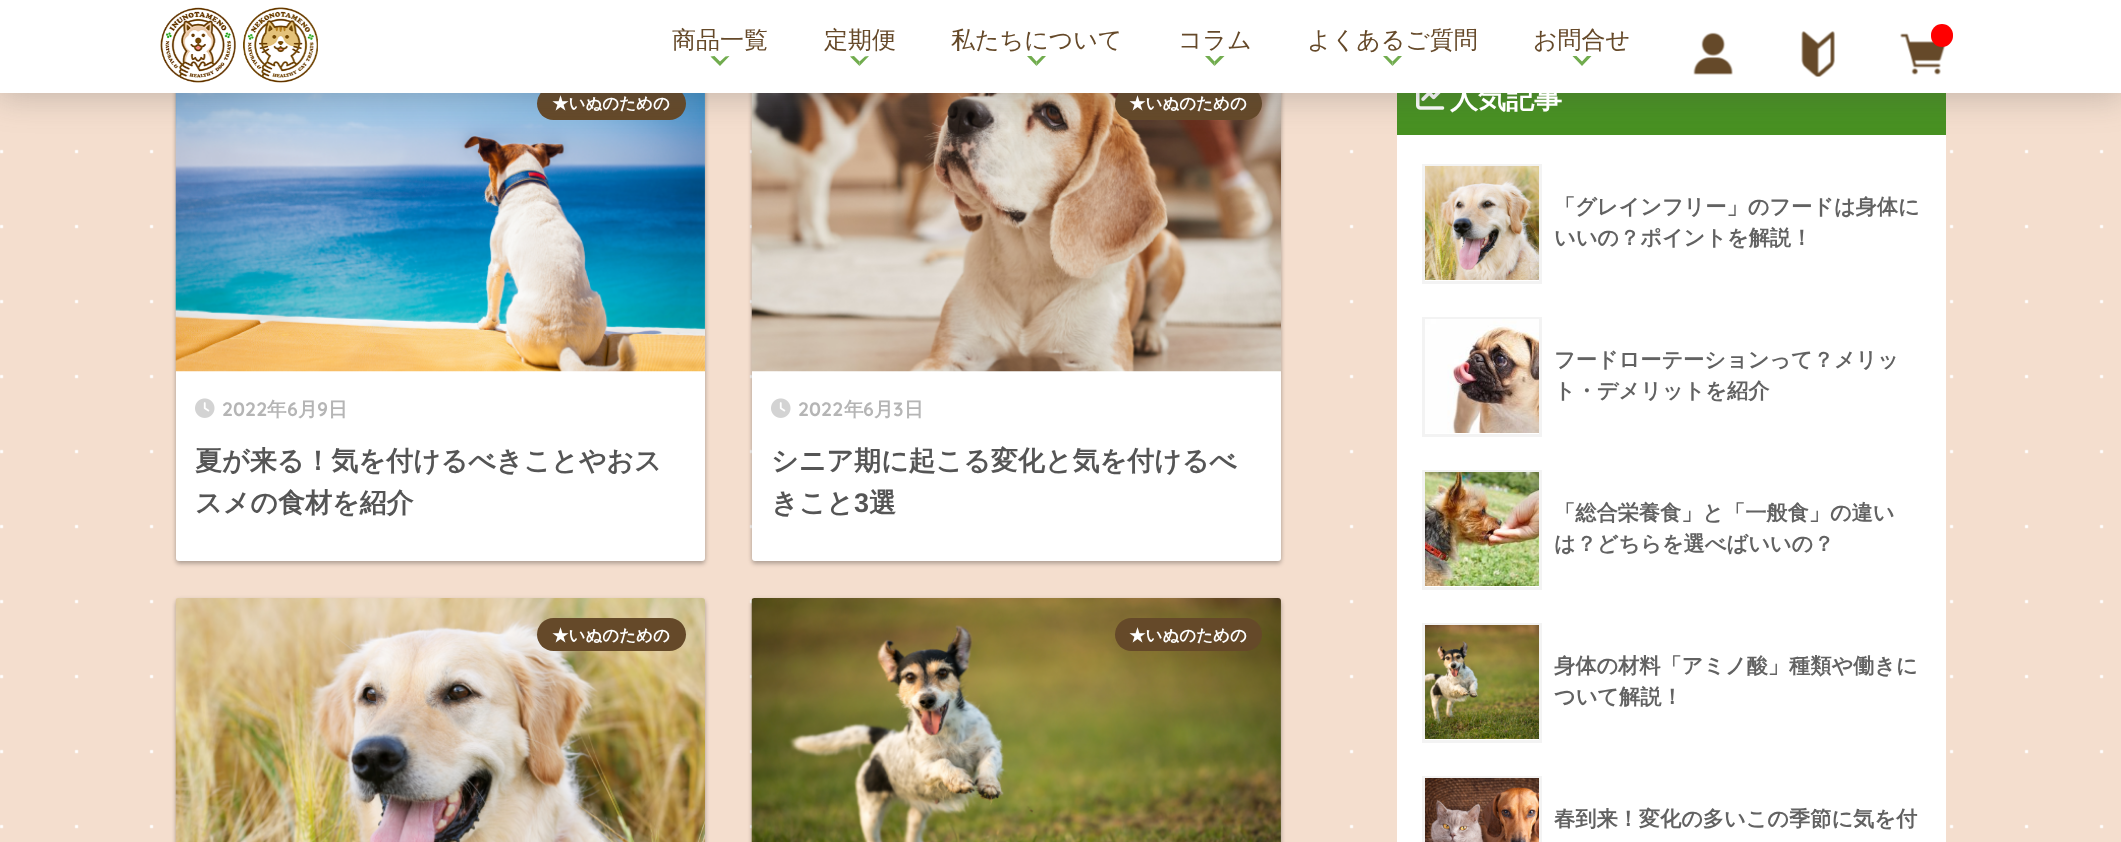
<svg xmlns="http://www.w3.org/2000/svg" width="2121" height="842">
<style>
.a{font:500 24px WenQuanYi Zen Hei;fill:#654929}
.b{font:bold 16.5px WenQuanYi Zen Hei;fill:#fff}
.c{font:bold 19.5px Quicksand;fill:#b5b5b5}
.d{font:bold 19.5px WenQuanYi Zen Hei;fill:#b5b5b5}
.e{font:bold 27px WenQuanYi Zen Hei;fill:#555}
.f{font:bold 27px Liberation Sans;fill:#555}
.g{font:bold 28px WenQuanYi Zen Hei;fill:#fff}
.h{font:bold 21.2px WenQuanYi Zen Hei;fill:#626262}
</style>
<rect width="100%" height="100%" fill="#f4dece"/>
<image href="1.png" x="0" y="149" width="2104" height="680"/>
<rect fill="#00000038" filter="blur(2px)" x="176" y="71" width="529" height="493" rx="3"/>
<rect fill="#0000001f" filter="blur(2px)" x="176" y="68" width="529" height="493" rx="3"/>
<rect fill="#fff" x="176" y="68" width="529" height="493" rx="3"/>
<image href="6.png" x="175" y="93" width="530" height="279"/>
<rect fill="#654929" x="537" y="87" width="149" height="33" rx="16.5"/>
<rect fill="#00000038" filter="blur(2px)" x="752" y="71" width="529" height="493" rx="3"/>
<rect fill="#0000001f" filter="blur(2px)" x="752" y="68" width="529" height="493" rx="3"/>
<rect fill="#fff" x="752" y="68" width="529" height="493" rx="3"/>
<image href="8.png" x="751" y="93" width="530" height="279"/>
<rect fill="#654929" x="1115" y="87" width="147" height="33" rx="16.5"/>
<path fill="#fff" d="M1397 135h549v707H1397z"/>
<path fill="#489122" d="M1397 93h549v42H1397z"/>
<image href="11.png" x="1416" y="93" width="29" height="17"/>
<path fill="#4d4d4d4d" filter="blur(17px)" d="M-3 -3h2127v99H-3z"/>
<path fill="#fff" d="M0 0h2121v93H0z"/>
<image href="2.png" x="160" y="7" width="158" height="76"/>
<path fill="#71ac4e" d="M729.5 56l-9.5 10v-4.5l5.5-5zm-9.5 10l-9.5-9.5l4-.5l5.5 5.5z"/>
<path fill="#71ac4e" d="M869 56l-9.5 10v-4.5l5.5-5z"/>
<path fill="#71ac4e" d="M859.5 66l-9.5-9.5l4-.5l5.5 5.5z"/>
<path fill="#71ac4e" d="M1046 56l-9.5 10v-4.5l5.5-5.5z"/>
<path fill="#71ac4e" d="M1036.5 66l-9.5-10h4.5l5 5.5z"/>
<path fill="#71ac4e" d="M1224.5 56l-10 10v-4.5l5.5-5.5z"/>
<path fill="#71ac4e" d="M1214.5 66l-9.5-10h4.5l5 5.5z"/>
<path fill="#71ac4e" d="M1402 56l-9.5 10v-4.5l5.5-5.5z"/>
<path fill="#71ac4e" d="M1392.5 66l-9.5-10h4l5.5 5.5z"/>
<path fill="#71ac4e" d="M1591.5 56l-9.5 10v-4.5l5-5.5zm-9.5 10l-9.5-10h4l5.5 5.5z"/>
<image href="3.png" x="1693" y="32" width="40" height="43"/>
<image href="4.png" x="1801" y="31" width="34" height="46"/>
<image href="5.png" x="1900" y="33" width="46" height="42"/>
<rect fill="#f00" x="1931" y="24" width="22" height="23" rx="11"/>
<image href="7.png" x="195" y="398" width="20" height="20"/>
<image href="7.png" x="771" y="398" width="20" height="20"/>
<rect fill="#00000038" filter="blur(2px)" x="176" y="602" width="529" height="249" rx="3"/>
<rect fill="#0000001f" filter="blur(2px)" x="176" y="599" width="529" height="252" rx="3"/>
<image href="9.png" x="175" y="598" width="530" height="244"/>
<rect fill="#654929" x="537" y="618" width="149" height="33" rx="16.5"/>
<rect fill="#00000038" filter="blur(2px)" x="752" y="602" width="529" height="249" rx="3"/>
<rect fill="#0000001f" filter="blur(2px)" x="752" y="599" width="529" height="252" rx="3"/>
<image href="10.png" x="751" y="598" width="530" height="244"/>
<rect fill="#654929" x="1115" y="618" width="147" height="33" rx="16.5"/>
<path fill="none" stroke="#f3f3f3" stroke-width="3" d="M1423.5 165.5h117v117H1423.5z"/>
<image href="12.png" x="1425" y="166" width="114" height="114"/>
<path fill="none" stroke="#f3f3f3" stroke-width="3" d="M1423.5 318.5h117v117H1423.5z"/>
<image href="13.png" x="1425" y="319" width="114" height="114"/>
<path fill="none" stroke="#f3f3f3" stroke-width="3" d="M1423.5 471.5h117v117H1423.5z"/>
<image href="14.png" x="1425" y="472" width="114" height="114"/>
<path fill="none" stroke="#f3f3f3" stroke-width="3" d="M1423.5 624.5h117v117H1423.5z"/>
<image href="15.png" x="1425" y="625" width="114" height="114"/>
<path fill="none" stroke="#f3f3f3" stroke-width="3" d="M1423.5 777.5h117v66H1423.5z"/>
<image href="16.png" x="1425" y="778" width="114" height="64"/>
<text class="a" x="672" y="48">商品一覧</text>
<text class="a" x="824" y="48">定期便</text>
<text class="a" x="951" y="48">私たちについて</text>
<text class="a" x="1178" y="48">コラム</text>
<text class="a" x="1307" y="48">よくあるご質問</text>
<text class="a" x="1533" y="48">お問合せ</text>
<text class="b" x="552" y="109">★いぬのための</text>
<text class="c" x="222" y="416">2022</text>
<text class="d" x="267" y="416">年</text>
<text class="c" x="287" y="416">6</text>
<text class="d" x="298" y="416">月</text>
<text class="c" x="317" y="416">9</text>
<text class="d" x="328" y="416">日</text>
<text class="e" x="195" y="470">夏が来る！気を付けるべきことやおス</text>
<text class="e" x="195" y="512">スメの食材を紹介</text>
<text class="b" x="1129" y="109">★いぬのための</text>
<text class="c" x="798" y="416">2022</text>
<text class="d" x="844" y="416">年</text>
<text class="c" x="863" y="416">6</text>
<text class="d" x="874" y="416">月</text>
<text class="c" x="893" y="416">3</text>
<text class="d" x="904" y="416">日</text>
<text class="e" x="771" y="470">シニア期に起こる変化と気を付けるべ</text>
<text class="e" x="771" y="512">きこと</text>
<text class="f" x="854" y="512">3</text>
<text class="e" x="869" y="512">選</text>
<text class="b" x="552" y="641">★いぬのための</text>
<text class="b" x="1129" y="641">★いぬのための</text>
<text class="g" x="1450" y="108">人気記事</text>
<text class="h" x="1554" y="214">「グレインフリー」のフードは身体に</text>
<text class="h" x="1554" y="245">いいの？ポイントを解説！</text>
<text class="h" x="1554" y="367">フードローテーションって？メリッ</text>
<text class="h" x="1554" y="398">ト・デメリットを紹介</text>
<text class="h" x="1554" y="520">「総合栄養食」と「一般食」の違い</text>
<text class="h" x="1554" y="551">は？どちらを選べばいいの？</text>
<text class="h" x="1554" y="673">身体の材料「アミノ酸」種類や働きに</text>
<text class="h" x="1554" y="704">ついて解説！</text>
<text class="h" x="1554" y="826">春到来！変化の多いこの季節に気を付</text>
</svg>
